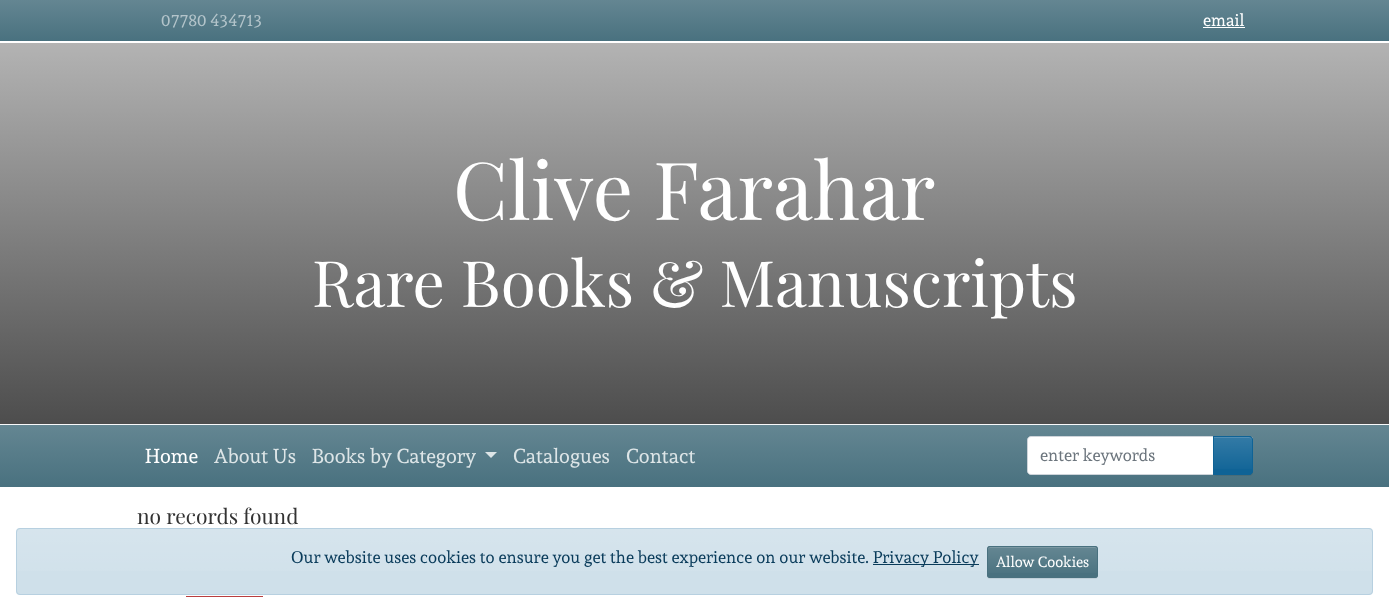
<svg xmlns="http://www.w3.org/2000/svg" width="1389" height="611">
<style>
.a{font:16.8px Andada;fill:#b3c4ca}
.b{font:16.8px Andada;fill:#fff}
.c{font:80px Playfair Display;fill:#fff}
.d{font:64px Playfair Display;fill:#fff}
.e{font:20px Andada;fill:#fff}
.f{font:20px Andada;fill:#dde5e7}
.g{font:16.8px Andada;fill:#6c757d}
.h{font:21px Playfair Display;fill:#333}
.i{font:16.8px Andada;fill:#093b5a}
.j{font:14.75px Andada;fill:#fff}
</style>
<defs>
<linearGradient id="g1" gradientUnits="userSpaceOnUse" x1="695" y1="0" x2="695" y2="41"><stop offset="0" stop-color="#648692"/><stop offset="1" stop-color="#49717f"/></linearGradient>
<linearGradient id="g2" gradientUnits="userSpaceOnUse" x1="695" y1="43" x2="695" y2="424"><stop offset="0" stop-color="#b3b3b3"/><stop offset="1" stop-color="#4d4d4d"/></linearGradient>
<linearGradient id="g3" gradientUnits="userSpaceOnUse" x1="695" y1="425" x2="695" y2="487"><stop offset="0" stop-color="#648692"/><stop offset="1" stop-color="#49717f"/></linearGradient>
<linearGradient id="g4" gradientUnits="userSpaceOnUse" x1="1233" y1="437" x2="1233" y2="474"><stop offset="0" stop-color="#fff" stop-opacity="0.15"/><stop offset="1" stop-color="#fff" stop-opacity="0"/></linearGradient>
<linearGradient id="g5" gradientUnits="userSpaceOnUse" x1="695" y1="529" x2="695" y2="594"><stop offset="0" stop-color="#fff" stop-opacity="0.15"/><stop offset="1" stop-color="#fff" stop-opacity="0"/></linearGradient>
<linearGradient id="g6" gradientUnits="userSpaceOnUse" x1="1043" y1="547" x2="1043" y2="577"><stop offset="0" stop-color="#fff" stop-opacity="0.15"/><stop offset="1" stop-color="#fff" stop-opacity="0"/></linearGradient>
</defs>
<rect width="100%" height="100%" fill="#fff"/>
<path fill="url(#g1)" d="M0 0h1389v41H0z"/>
<path fill="#fff" d="M1203 27h42v1H1203z"/>
<path fill="url(#g2)" d="M0 43h1389v381H0z"/>
<path fill="url(#g3)" d="M0 425h1389v62H0z"/>
<path fill="#f8f9fa" d="M0 424h1389v1H0z"/>
<path fill="#dde5e7" d="M485 452h12l-6 6z"/>
<path fill="#fff" stroke="#ced4da" d="M1031 436.5h182.5v38h-182.5c-2 0-3.5-1.5-3.5-3.5v-31c0-2 1.5-3.5 3.5-3.5z"/>
<rect fill="#00000012" filter="blur(0.5px)" x="1213" y="437" width="40" height="39" rx="4"/>
<path fill="#0f6396" d="M1213 436h36c2 0 4 2 4 4v31c0 2-2 4-4 4h-36z"/>
<path fill="url(#g4)" d="M1214 437h39v32H1214z"/>
<path fill="#518eb3" d="M1214 438h35c2 0 3 1 3 3v-1c0-1.5-1.5-3-3-3h-35z"/>
<path fill="none" stroke="#0f6396" d="M1213.5 436.5h35.5c2 0 3.5 1.5 3.5 3.5v31c0 2-1.5 3.5-3.5 3.5h-35.5z"/>
<path fill="#b93e40" d="M186 596h77v1H186z"/>
<rect fill="#cfe0ea" x="16" y="528" width="1357" height="67" rx="4"/>
<path fill="url(#g5)" d="M16 529h1357v42H16z"/>
<rect fill="none" stroke="#b7d0e0" x="16.5" y="528.5" width="1356" height="66" rx="3.5"/>
<path fill="#093b5a" d="M873 564h106v1H873z"/>
<rect fill="#00000012" filter="blur(0.5px)" x="987" y="547" width="111" height="32" rx="3"/>
<rect fill="#49717f" x="987" y="546" width="111" height="32" rx="3"/>
<path fill="url(#g6)" d="M987 547h111v26H987z"/>
<path fill="#7b98a2" d="M990 548h105c1 0 2 1 2 2c0-1 0-3-2-3h-105c-2 0-2 2-2 3c0-1 1-2 2-2z"/>
<rect fill="none" stroke="#49717f" x="987.5" y="546.5" width="110" height="31" rx="2.5"/>
<text class="a" x="161" y="26">07780 434713</text>
<text class="b" x="1203" y="26">email</text>
<text class="c" x="453" y="220">Clive Farahar</text>
<text class="d" x="312" y="307">Rare Books &amp; Manuscripts</text>
<text class="e" x="145" y="463">Home</text>
<text class="f" x="214" y="463">About Us</text>
<text class="f" x="312" y="463">Books by Category</text>
<text class="f" x="513" y="463">Catalogues</text>
<text class="f" x="626" y="463">Contact</text>
<text class="g" x="1040" y="461">enter keywords</text>
<text class="h" x="137" y="524">no records found</text>
<text class="i" x="291" y="563">Our website uses cookies to ensure you get the best experience on our website.</text>
<text class="i" x="873" y="563">Privacy Policy</text>
<text class="j" x="996" y="567">Allow Cookies</text>
</svg>
